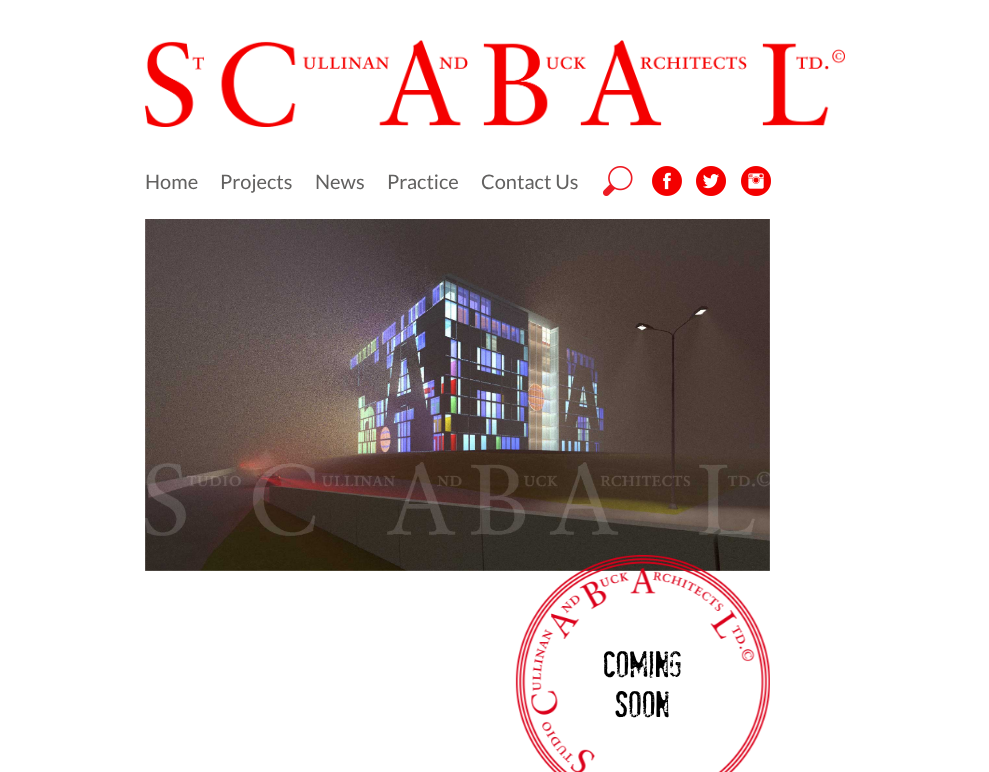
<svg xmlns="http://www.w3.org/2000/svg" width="989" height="772">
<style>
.a{font:20px Lato;fill:#626160}
.b{font:32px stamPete;fill:#000}
</style>
<rect width="100%" height="100%" fill="#fff"/>
<image href="1.png" x="145" y="40" width="700" height="87"/>
<image href="2.png" x="603" y="166" width="30" height="30"/>
<image href="3.png" x="652" y="166" width="30" height="30"/>
<image href="4.png" x="696" y="166" width="30" height="30"/>
<image href="5.png" x="741" y="166" width="30" height="30"/>
<image href="6.png" x="145" y="219" width="625" height="352"/>
<image href="7.png" x="515" y="555" width="255" height="217"/>
<text class="a" x="145" y="189">Home</text>
<text class="a" x="220" y="189">Projects</text>
<text class="a" x="315" y="189">News</text>
<text class="a" x="387" y="189">Practice</text>
<text class="a" x="481" y="189">Contact Us</text>
<text class="b" x="603" y="677">Coming</text>
<text class="b" x="615" y="717">Soon</text>
</svg>
